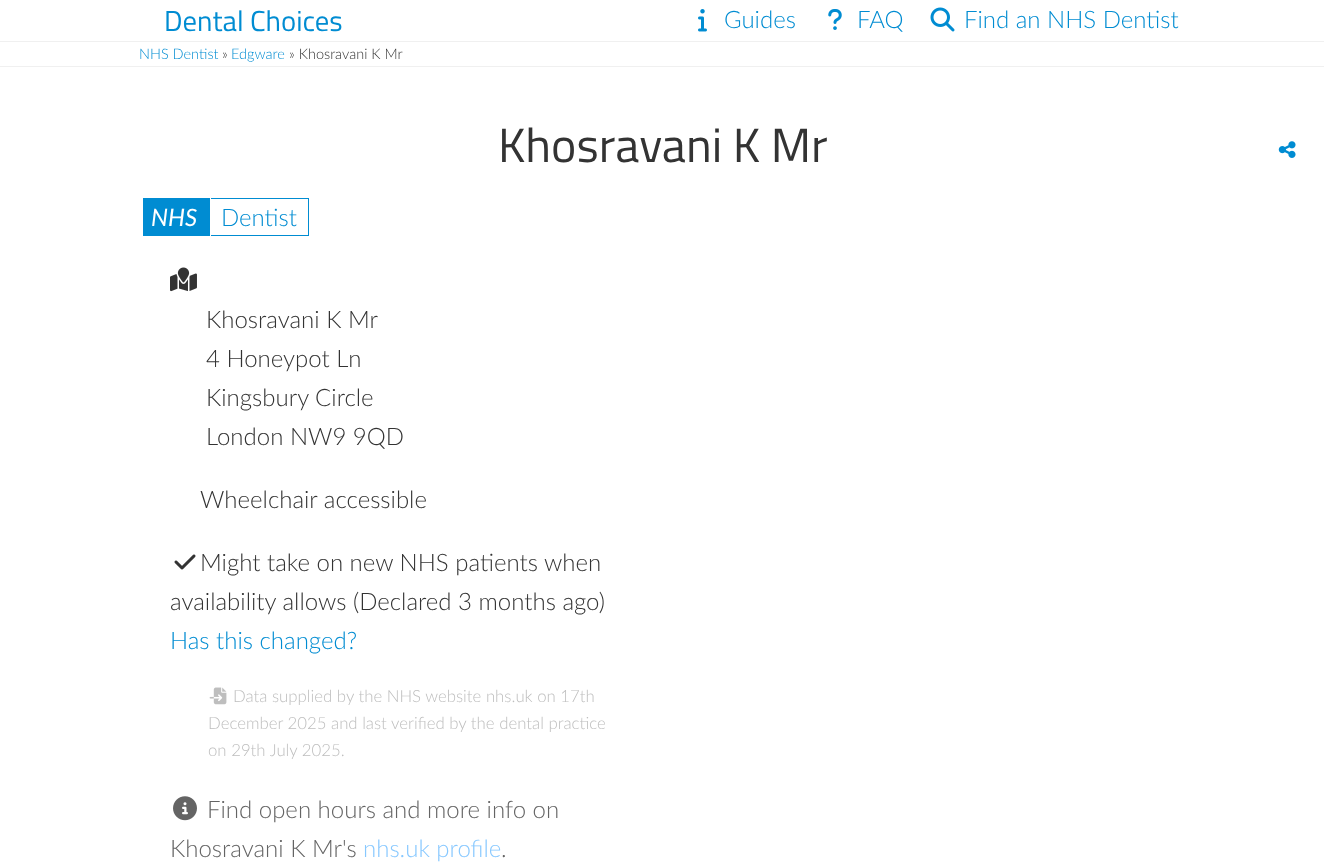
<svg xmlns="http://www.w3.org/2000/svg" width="1324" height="863">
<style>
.a{font:28.75px Titillium Web;fill:#008cd2}
.b{font:300 24px Lato;fill:#008cd2}
.c{font:300 14.5px Lato;fill:#008cd2}
.d{font:300 14.5px Lato;fill:#333}
.e{font:48px Titillium Web;fill:#333}
.f{font:italic 24px Lato;fill:#fff}
.g{font:300 24px Lato;fill:#333}
.h{font:300 16.8px Lato;fill:#bebebe}
.i{font:300 24px Lato;fill:#646464}
.j{font:300 24px Lato;fill:#87c8ff}
</style>
<rect width="100%" height="100%" fill="#fff"/>
<path fill="#f0f0f0" d="M0 41h1324v1H0z"/>
<image href="1.png" x="698" y="9" width="9" height="23"/>
<image href="2.png" x="828" y="9" width="14" height="21"/>
<image href="3.png" x="930" y="7" width="25" height="25"/>
<path fill="#f0f0f0" d="M0 66h1324v1H0z"/>
<image href="4.png" x="1278" y="141" width="18" height="17"/>
<path fill="#008cd2" d="M143 198h67v38H143z"/>
<path fill="#008cd2" d="M211 198h98v1H211z"/>
<path fill="#008cd2" d="M308 198h1v38H308z"/>
<path fill="#008cd2" d="M211 235h98v1H211z"/>
<image href="5.png" x="170" y="267" width="27" height="25"/>
<image href="6.png" x="174" y="554" width="22" height="16"/>
<image href="7.png" x="209" y="687" width="18" height="18"/>
<image href="8.png" x="173" y="796" width="24" height="25"/>
<text class="a" x="164" y="31">Dental Choices</text>
<text class="b" x="724" y="28">Guides</text>
<text class="b" x="857" y="28">FAQ</text>
<text class="b" x="964" y="28">Find an NHS Dentist</text>
<text class="c" x="139" y="59">NHS Dentist</text>
<text class="d" x="222" y="59">»</text>
<text class="c" x="231" y="59">Edgware</text>
<text class="d" x="289" y="59">» Khosravani K Mr</text>
<text class="e" x="498" y="162">Khosravani K Mr</text>
<text class="f" x="151" y="226">NHS</text>
<text class="b" x="221" y="226">Dentist</text>
<text class="g" x="206" y="328">Khosravani K Mr</text>
<text class="g" x="206" y="367">4 Honeypot Ln</text>
<text class="g" x="206" y="406">Kingsbury Circle</text>
<text class="g" x="206" y="445">London NW9 9QD</text>
<text class="g" x="200" y="508">Wheelchair accessible</text>
<text class="g" x="200" y="571">Might take on new NHS patients when</text>
<text class="g" x="170" y="610">availability allows (Declared 3 months ago)</text>
<text class="b" x="170" y="649">Has this changed?</text>
<text class="h" x="233" y="702">Data supplied by the NHS website nhs.uk on 17th</text>
<text class="h" x="208" y="729">December 2025 and last verified by the dental practice</text>
<text class="h" x="208" y="756">on 29th July 2025.</text>
<text class="i" x="207" y="818">Find open hours and more info on</text>
<text class="i" x="170" y="857">Khosravani K Mr's</text>
<text class="j" x="363" y="857">nhs.uk profile</text>
<text class="i" x="501" y="857">.</text>
</svg>
